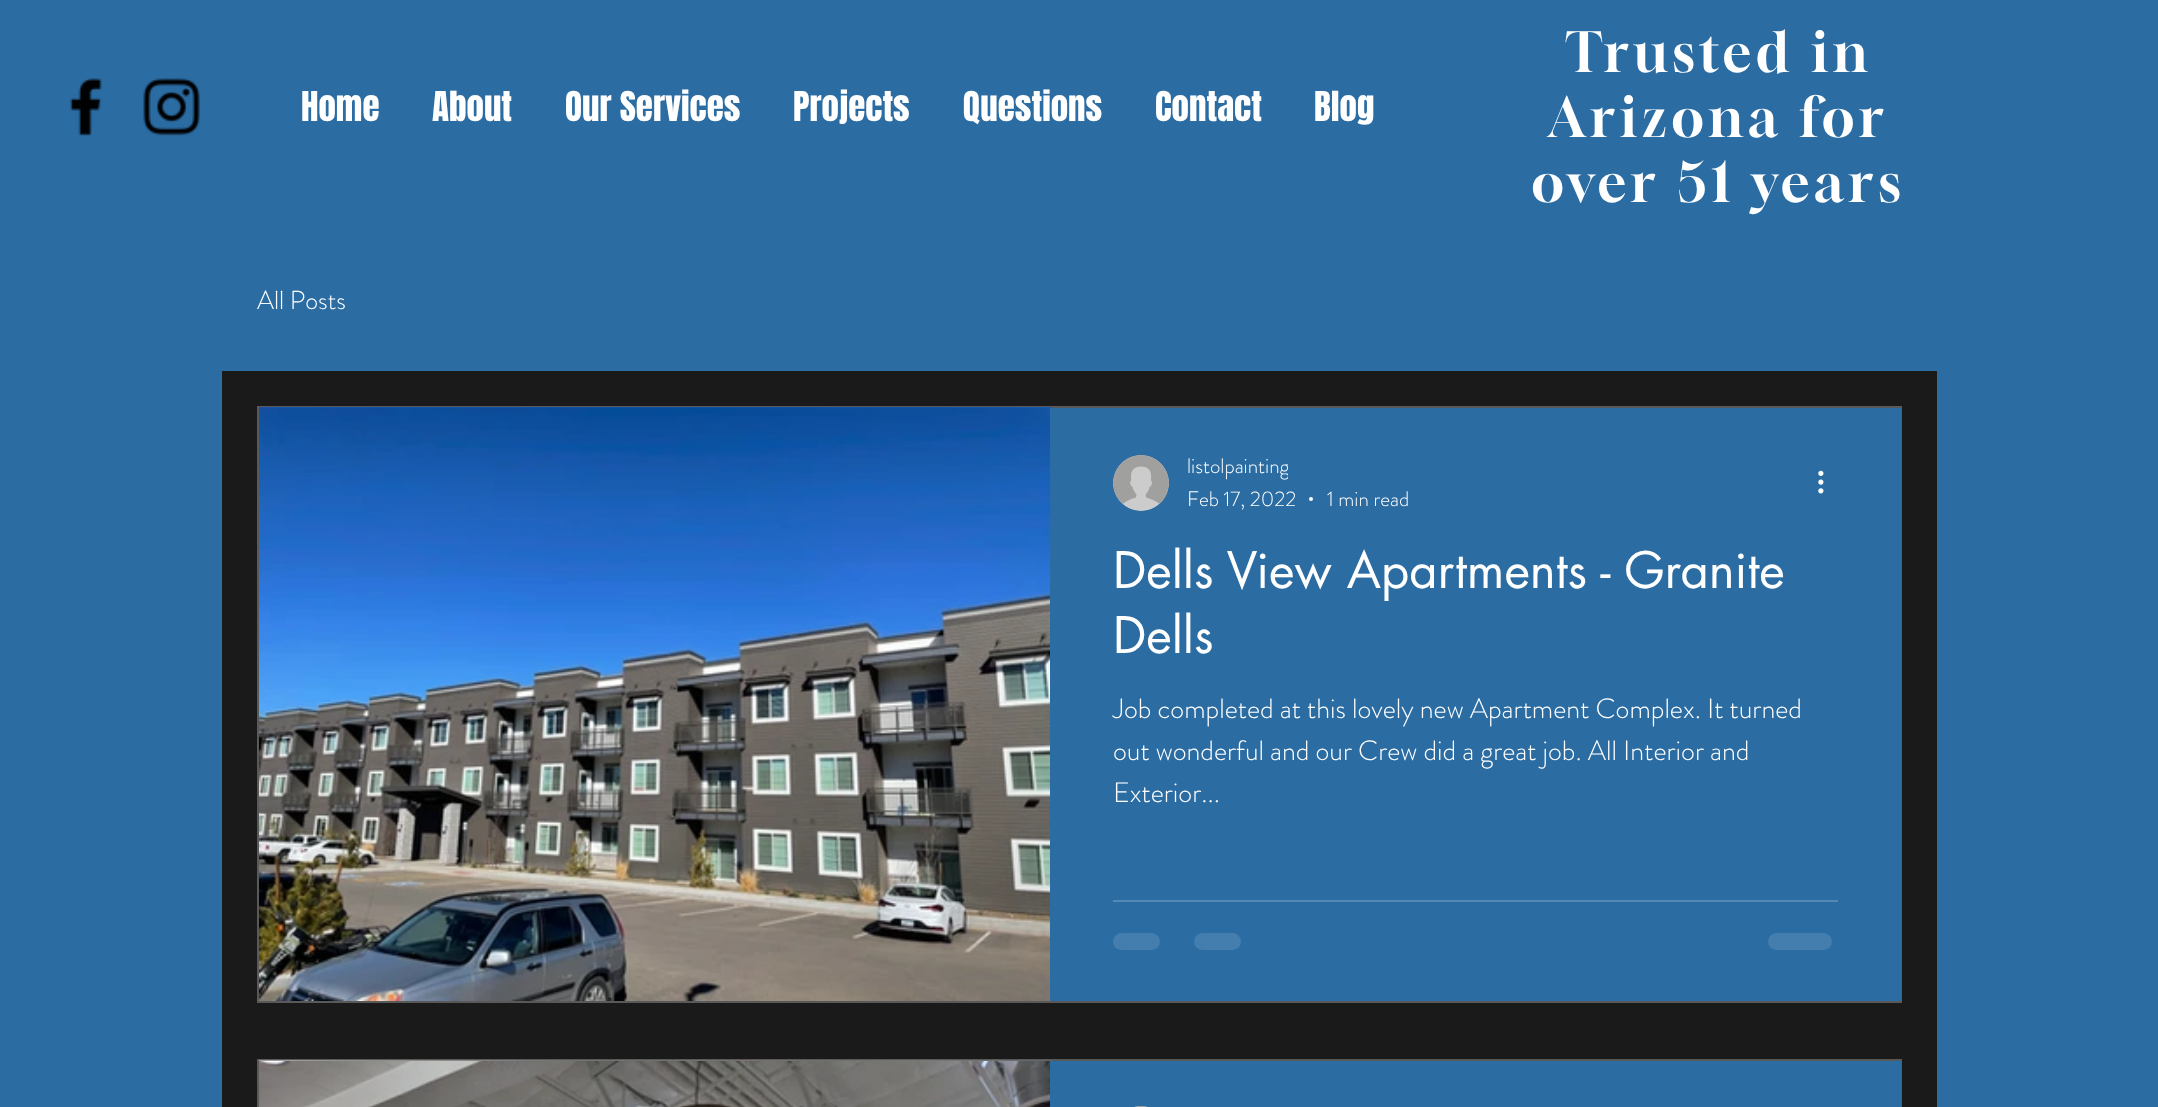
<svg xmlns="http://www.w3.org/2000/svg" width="2158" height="1107">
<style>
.a{font:35px Anton;fill:#fff}
.b{font:54.25px Gloock;letter-spacing:5.4px;fill:#fff}
.c{font:300 26px 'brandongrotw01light';fill:#fff}
.d{font:300 21px 'brandongrotw01light';fill:#fff}
.e{font:49px futura;fill:#fff}
.f{font:300 28px 'brandongrotw01light';fill:#fff}
</style>
<defs>
<clipPath id="clip1"><path d="M1187 452h101v31H1187z"/></clipPath>
</defs>
<rect width="100%" height="100%" fill="#2b6ca3"/>
<image href="1.png" x="69" y="78" width="33" height="58"/>
<image href="2.png" x="143" y="78" width="57" height="58"/>
<path fill="#1a1a1a" d="M222 371h1715v736H222z"/>
<path fill="none" stroke="#595959" stroke-width="2" d="M258 407h1643v595H258z"/>
<image href="3.png" x="259" y="407" width="793" height="1"/>
<image href="4.png" x="259" y="408" width="791" height="593"/>
<path fill="#2b6ca3" d="M1050 408h851v593H1050z"/>
<image href="5.png" x="1113" y="455" width="56" height="56"/>
<circle fill="#fff" cx="1311" cy="499" r="2"/>
<image href="6.png" x="1818" y="470" width="6" height="24"/>
<path fill="#5589b5" d="M1113 900h725v2H1113z"/>
<rect fill="#447eae" x="1113" y="933" width="47" height="17" rx="8.5"/>
<rect fill="#447eae" x="1194" y="933" width="47" height="17" rx="8.5"/>
<rect fill="#447eae" x="1768" y="933" width="64" height="17" rx="8.5"/>
<path fill="none" stroke="#595959" stroke-width="2" d="M258 1060h1643v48H258z"/>
<image href="7.png" x="259" y="1060" width="793" height="1"/>
<image href="8.png" x="259" y="1061" width="791" height="46"/>
<path fill="#2b6ca3" d="M1050 1061h851v46H1050z"/>
<image href="9.png" x="1134" y="1106" width="14" height="1"/>
<text class="a" x="301" y="121">Home</text>
<text class="a" x="432" y="121">About</text>
<text class="a" x="565" y="121">Our Services</text>
<text class="a" x="793" y="121">Projects</text>
<text class="a" x="963" y="121">Questions</text>
<text class="a" x="1155" y="121">Contact</text>
<text class="a" x="1314" y="121">Blog</text>
<text class="b" x="1565" y="72">Trusted in</text>
<text class="b" x="1548" y="137">Arizona for</text>
<text class="b" x="1531" y="202">over 51 years</text>
<text class="c" x="257" y="309">All Posts</text>
<g clip-path="url(#clip1)">
<text class="d" x="1187" y="473">listolpainting</text>
</g>
<text class="d" x="1187" y="506">Feb 17, 2022</text>
<text class="d" x="1327" y="506">1 min read</text>
<text class="e" x="1113" y="588">Dells View Apartments - Granite</text>
<text class="e" x="1113" y="653">Dells</text>
<text class="f" x="1113" y="718">Job completed at this lovely new Apartment Complex. It turned</text>
<text class="f" x="1113" y="760">out wonderful and our Crew did a great job. All Interior and</text>
<text class="f" x="1113" y="802">Exterior...</text>
</svg>
